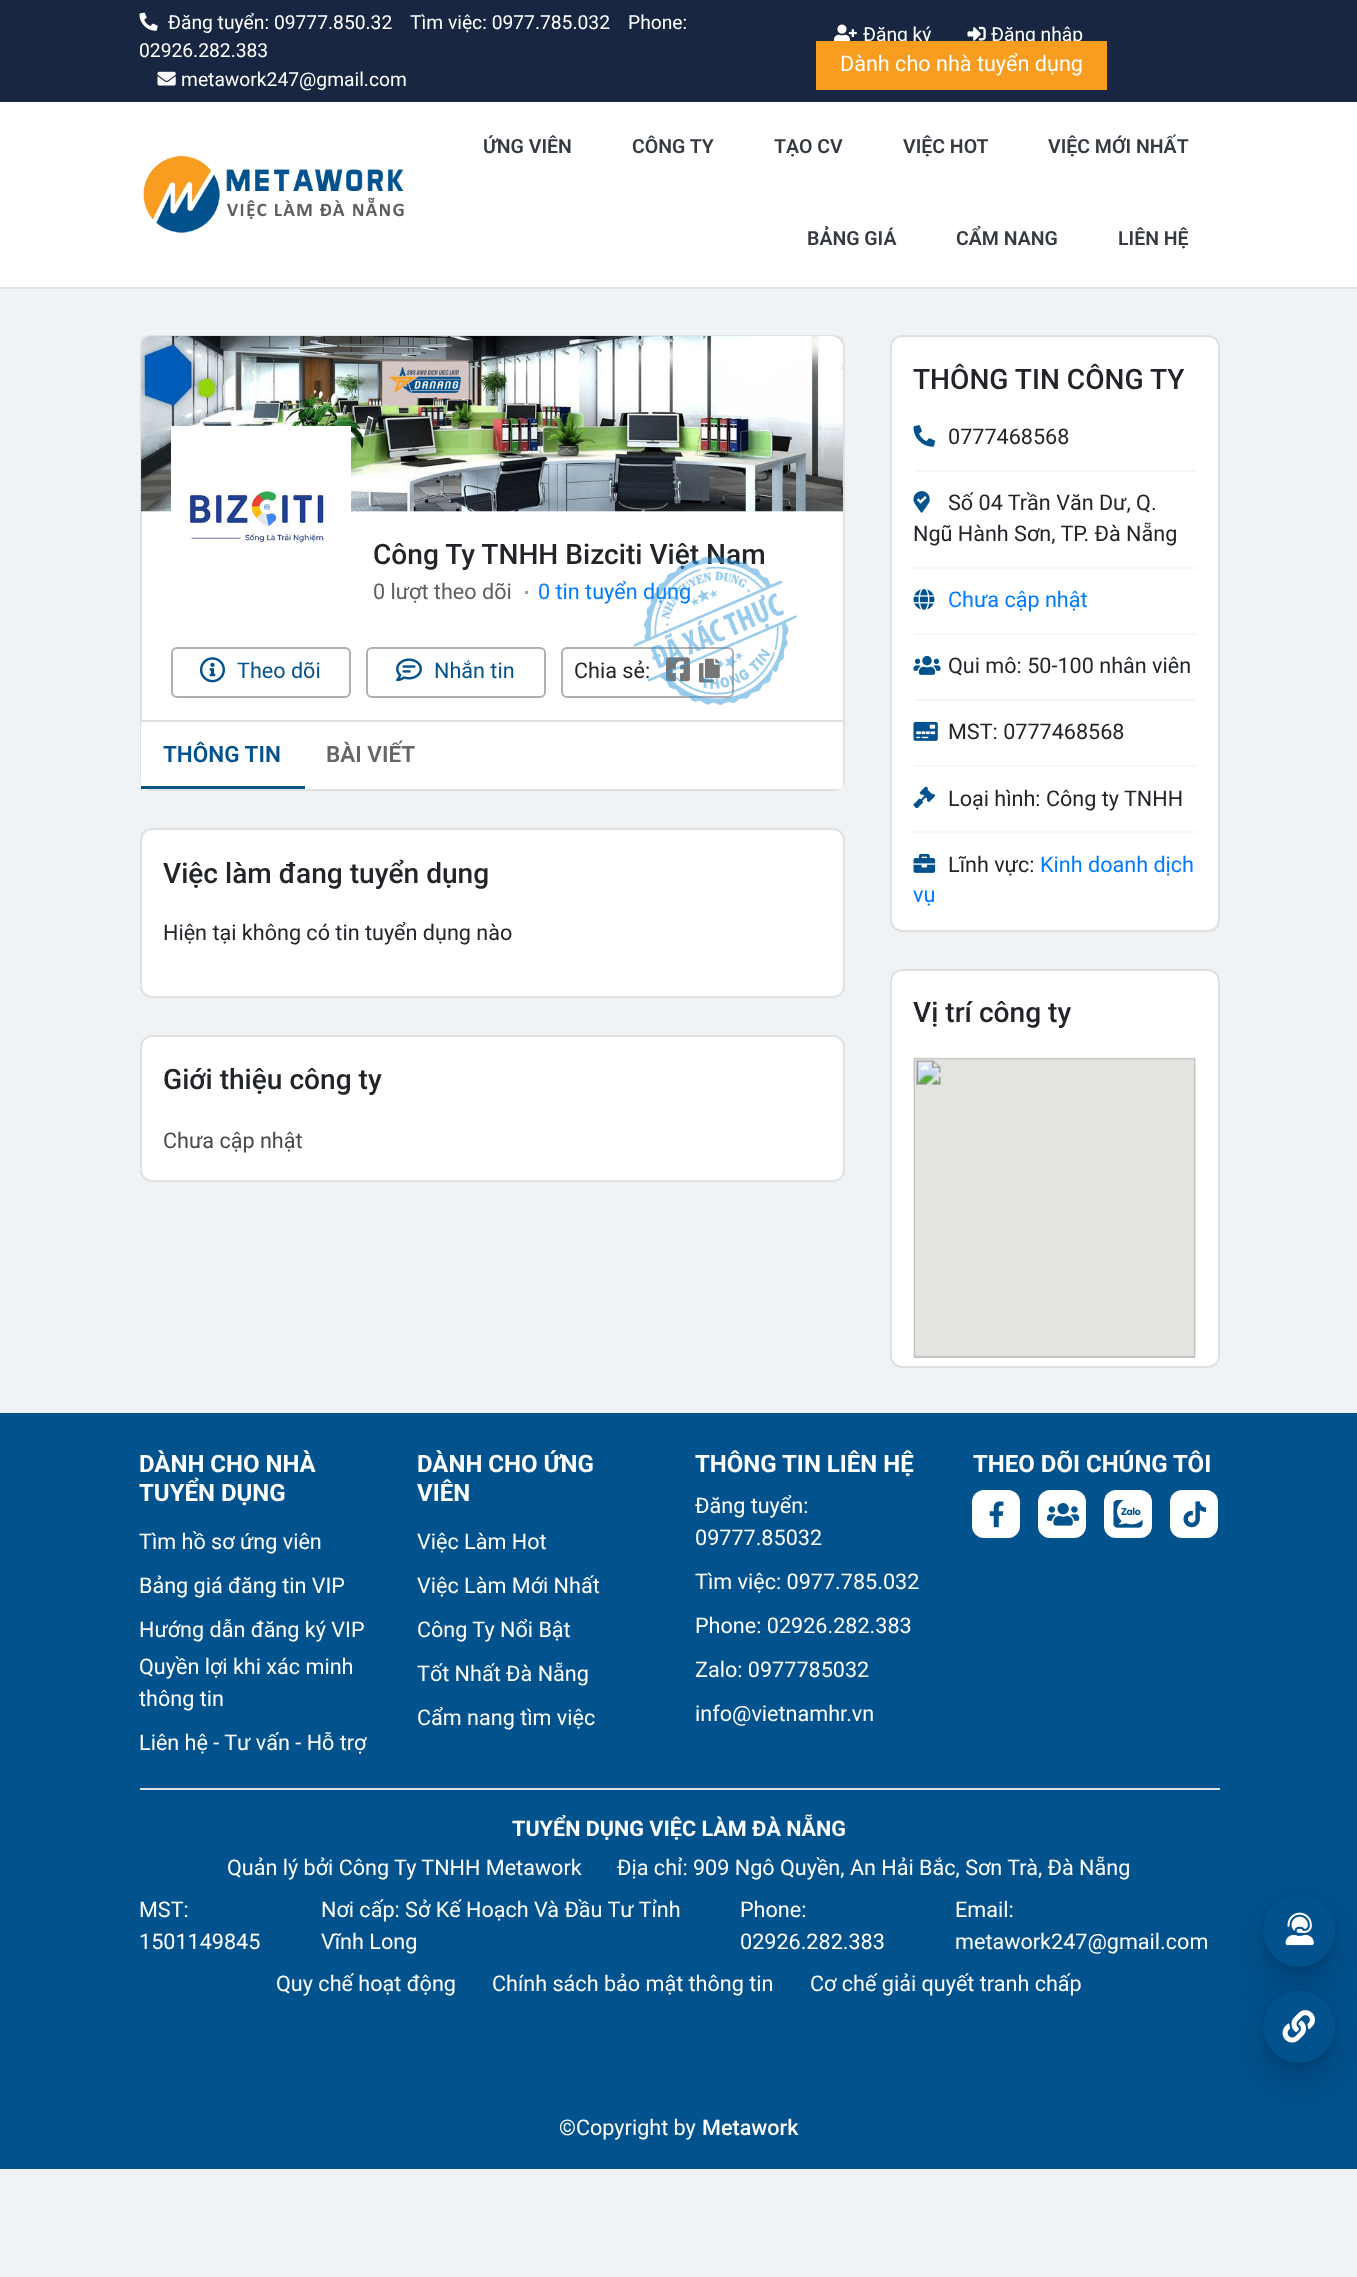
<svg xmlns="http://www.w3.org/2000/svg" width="1357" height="2277">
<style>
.a{font:19.25px Roboto;fill:#fff}
.b{font:21.6px Roboto;fill:#fff}
.c{font:600 19.5px Roboto;fill:#343a40}
.d{font:500 28.1px Roboto;fill:#212529}
.e{font:21.6px Roboto;fill:#605d5d}
.f{font:21.6px Roboto;fill:#007bff}
.g{font:21.6px Roboto;fill:#02528e}
.h{font:21.6px Roboto;fill:#212529}
.i{font:600 22.5px Roboto;fill:#02528e}
.j{font:600 22.5px Roboto;fill:#666}
.k{font:21.6px Roboto;fill:#484848}
.l{font:bold 24px Roboto;fill:#fff}
.m{font:bold 21.6px Roboto;fill:#fff}
.n{font:500 21.6px Roboto;fill:#fff}
</style>
<rect width="100%" height="100%" fill="#eff3f6"/>
<path fill="#fff" d="M0 102h1357v185H0z"/>
<path fill="#dee2e6" d="M0 287h1357v2H0z"/>
<path fill="#182641" d="M0 0h1357v102H0z"/>
<image href="1.png" x="139" y="12" width="19" height="19"/>
<image href="2.png" x="157" y="71" width="19" height="15"/>
<image href="3.png" x="834" y="24" width="23" height="17"/>
<image href="4.png" x="967" y="26" width="19" height="15"/>
<image href="5.png" x="143" y="155" width="261" height="78"/>
<rect fill="#fff" x="140" y="335" width="705" height="456" rx="12"/>
<rect fill="none" stroke="#0000001f" stroke-width="2" x="141" y="336" width="703" height="454" rx="11"/>
<path fill="#00000008" d="M141 336h702v176H141z"/>
<image href="6.png" x="141" y="336" width="702" height="176"/>
<path fill="#fff" d="M171 426h180v86H171z"/>
<image href="7.png" x="188" y="489" width="139" height="57"/>
<path fill="#a09e9e" d="M525 591h3v3H525z"/>
<rect fill="none" stroke="#b1b0b0" stroke-width="2" x="172" y="648" width="178" height="49" rx="5"/>
<image href="8.png" x="199" y="657" width="26" height="26"/>
<rect fill="none" stroke="#b1b0b0" stroke-width="2" x="367" y="648" width="178" height="49" rx="5"/>
<image href="9.png" x="396" y="658" width="26" height="24"/>
<rect fill="none" stroke="#b1b0b0" stroke-width="2" x="562" y="648" width="171" height="49" rx="5"/>
<image href="10.png" x="666" y="657" width="24" height="25"/>
<image href="11.png" x="699" y="658" width="21" height="25"/>
<path fill="#fff" d="M141 720h702v64c0 3-2 5-5 5h-692c-3 0-5-2-5-5z"/>
<path fill="#dfdfdf" d="M141 720h702v2H141z"/>
<path fill="#fff" d="M141 785h1v1H141z"/>
<path fill="#02528e" d="M141 786h164v3H141z"/>
<rect fill="#fff" x="140" y="828" width="705" height="170" rx="12"/>
<rect fill="none" stroke="#0000001f" stroke-width="2" x="141" y="829" width="703" height="168" rx="11"/>
<rect fill="#fff" x="140" y="1035" width="705" height="147" rx="12"/>
<rect fill="none" stroke="#0000001f" stroke-width="2" x="141" y="1036" width="703" height="145" rx="11"/>
<rect fill="#fff" x="890" y="335" width="330" height="597" rx="12"/>
<rect fill="none" stroke="#0000001f" stroke-width="2" x="891" y="336" width="328" height="595" rx="11"/>
<image href="13.png" x="913" y="425" width="23" height="22"/>
<path fill="#f6f6f6" d="M914 470h282v2H914z"/>
<image href="14.png" x="913" y="491" width="17" height="22"/>
<path fill="#f6f6f6" d="M914 567h282v2H914z"/>
<image href="15.png" x="913" y="589" width="22" height="21"/>
<path fill="#f6f6f6" d="M914 633h282v2H914z"/>
<image href="16.png" x="913" y="656" width="28" height="19"/>
<path fill="#f6f6f6" d="M914 699h282v2H914z"/>
<image href="17.png" x="913" y="721" width="25" height="20"/>
<path fill="#f6f6f6" d="M914 765h282v2H914z"/>
<image href="18.png" x="913" y="786" width="23" height="23"/>
<path fill="#f6f6f6" d="M914 831h282v2H914z"/>
<image href="19.png" x="913" y="853" width="23" height="20"/>
<rect fill="#fff" x="890" y="969" width="330" height="399" rx="12"/>
<rect fill="none" stroke="#0000001f" stroke-width="2" x="891" y="970" width="328" height="397" rx="11"/>
<image href="20.png" x="913" y="1057" width="283" height="301"/>
<path fill="#02528e" d="M0 1413h1357v756H0z"/>
<path fill="#dee2e6" d="M140 1788h1080v2H140z"/>
<rect fill="#fff" x="972" y="1490" width="48" height="48" rx="12"/>
<image href="21.png" x="989" y="1501" width="15" height="27"/>
<rect fill="#fff" x="1038" y="1490" width="48" height="48" rx="12"/>
<image href="22.png" x="1047" y="1503" width="33" height="23"/>
<rect fill="#fff" x="1104" y="1490" width="48" height="48" rx="12"/>
<image href="23.png" x="1113" y="1500" width="30" height="28"/>
<rect fill="#fff" x="1170" y="1490" width="48" height="48" rx="12"/>
<image href="24.png" x="1183" y="1501" width="24" height="27"/>
<rect fill="#00000033" filter="blur(21px)" x="1263" y="1913" width="72" height="72" rx="36"/>
<rect fill="#0000001a" filter="blur(3px)" x="1263" y="1898" width="72" height="72" rx="36"/>
<circle fill="#02528e" cx="1299" cy="1931" r="36"/>
<image href="25.png" x="1285" y="1912" width="29" height="34"/>
<rect fill="#00000033" filter="blur(21px)" x="1263" y="2009" width="72" height="72" rx="36"/>
<rect fill="#0000001a" filter="blur(3px)" x="1263" y="1994" width="72" height="72" rx="36"/>
<circle fill="#02528e" cx="1299" cy="2027" r="36"/>
<image href="26.png" x="1282" y="2010" width="33" height="33"/>
<text class="a" x="168" y="29">Đăng tuyển: 09777.850.32</text>
<text class="a" x="410" y="29">Tìm việc: 0977.785.032</text>
<text class="a" x="628" y="29">Phone:</text>
<text class="a" x="139" y="57">02926.282.383</text>
<text class="a" x="181" y="86">metawork247@gmail.com</text>
<text class="a" x="863" y="41">Đăng ký</text>
<text class="a" x="991" y="41">Đăng nhập</text>
<path fill="#f89d20" d="M816 41h291v49H816z"/>
<text class="b" x="840" y="71">Dành cho nhà tuyển dụng</text>
<text class="c" x="483" y="153">ỨNG VIÊN</text>
<text class="c" x="632" y="153">CÔNG TY</text>
<text class="c" x="774" y="153">TẠO CV</text>
<text class="c" x="903" y="153">VIỆC HOT</text>
<text class="c" x="1048" y="153">VIỆC MỚI NHẤT</text>
<text class="c" x="807" y="245">BẢNG GIÁ</text>
<text class="c" x="956" y="245">CẨM NANG</text>
<text class="c" x="1118" y="245">LIÊN HỆ</text>
<text class="d" x="373" y="564">Công Ty TNHH Bizciti Việt Nam</text>
<text class="e" x="373" y="599">0 lượt theo dõi</text>
<text class="f" x="538" y="599">0 tin tuyển dụng</text>
<text class="g" x="237" y="678">Theo dõi</text>
<text class="g" x="434" y="678">Nhắn tin</text>
<text class="h" x="574" y="678">Chia sẻ:</text>
<image href="12.png" x="633" y="555" width="164" height="150"/>
<text class="i" x="163" y="762">THÔNG TIN</text>
<text class="j" x="326" y="762">BÀI VIẾT</text>
<text class="d" x="163" y="883">Việc làm đang tuyển dụng</text>
<text class="h" x="163" y="940">Hiện tại không có tin tuyển dụng nào</text>
<text class="d" x="163" y="1089">Giới thiệu công ty</text>
<text class="k" x="163" y="1148">Chưa cập nhật</text>
<text class="d" x="913" y="389">THÔNG TIN CÔNG TY</text>
<text class="h" x="948" y="444">0777468568</text>
<text class="h" x="948" y="510">Số 04 Trần Văn Dư, Q.</text>
<text class="h" x="913" y="541">Ngũ Hành Sơn, TP. Đà Nẵng</text>
<text class="f" x="948" y="607">Chưa cập nhật</text>
<text class="h" x="948" y="673">Qui mô: 50-100 nhân viên</text>
<text class="h" x="948" y="739">MST: 0777468568</text>
<text class="h" x="948" y="806">Loại hình: Công ty TNHH</text>
<text class="h" x="948" y="872">Lĩnh vực:</text>
<text class="f" x="1040" y="872">Kinh doanh dịch</text>
<text class="f" x="913" y="902">vụ</text>
<text class="d" x="913" y="1022">Vị trí công ty</text>
<text class="l" x="139" y="1472">DÀNH CHO NHÀ</text>
<text class="l" x="139" y="1501">TUYỂN DỤNG</text>
<text class="b" x="139" y="1549">Tìm hồ sơ ứng viên</text>
<text class="b" x="139" y="1593">Bảng giá đăng tin VIP</text>
<text class="b" x="139" y="1637">Hướng dẫn đăng ký VIP</text>
<text class="b" x="139" y="1674">Quyền lợi khi xác minh</text>
<text class="b" x="139" y="1706">thông tin</text>
<text class="b" x="139" y="1750">Liên hệ - Tư vấn - Hỗ trợ</text>
<text class="l" x="417" y="1472">DÀNH CHO ỨNG</text>
<text class="l" x="417" y="1501">VIÊN</text>
<text class="b" x="417" y="1549">Việc Làm Hot</text>
<text class="b" x="417" y="1593">Việc Làm Mới Nhất</text>
<text class="b" x="417" y="1637">Công Ty Nổi Bật</text>
<text class="b" x="417" y="1681">Tốt Nhất Đà Nẵng</text>
<text class="b" x="417" y="1725">Cẩm nang tìm việc</text>
<text class="l" x="695" y="1472">THÔNG TIN LIÊN HỆ</text>
<text class="b" x="695" y="1513">Đăng tuyển:</text>
<text class="b" x="695" y="1545">09777.85032</text>
<text class="b" x="695" y="1589">Tìm việc: 0977.785.032</text>
<text class="b" x="695" y="1633">Phone: 02926.282.383</text>
<text class="b" x="695" y="1677">Zalo: 0977785032</text>
<text class="b" x="695" y="1721">info@vietnamhr.vn</text>
<text class="l" x="973" y="1472">THEO DÕI CHÚNG TÔI</text>
<text class="m" x="512" y="1836">TUYỂN DỤNG VIỆC LÀM ĐÀ NẴNG</text>
<text class="b" x="227" y="1875">Quản lý bởi Công Ty TNHH Metawork</text>
<text class="b" x="617" y="1875">Địa chỉ: 909 Ngô Quyền, An Hải Bắc, Sơn Trà, Đà Nẵng</text>
<text class="b" x="139" y="1917">MST:</text>
<text class="b" x="139" y="1949">1501149845</text>
<text class="b" x="321" y="1917">Nơi cấp: Sở Kế Hoạch Và Đầu Tư Tỉnh</text>
<text class="b" x="321" y="1949">Vĩnh Long</text>
<text class="b" x="740" y="1917">Phone:</text>
<text class="b" x="740" y="1949">02926.282.383</text>
<text class="b" x="955" y="1917">Email:</text>
<text class="b" x="955" y="1949">metawork247@gmail.com</text>
<text class="b" x="276" y="1991">Quy chế hoạt động</text>
<text class="b" x="492" y="1991">Chính sách bảo mật thông tin</text>
<text class="b" x="810" y="1991">Cơ chế giải quyết tranh chấp</text>
<text class="b" x="559" y="2135">©Copyright by</text>
<text class="n" x="702" y="2135">Metawork</text>
</svg>
